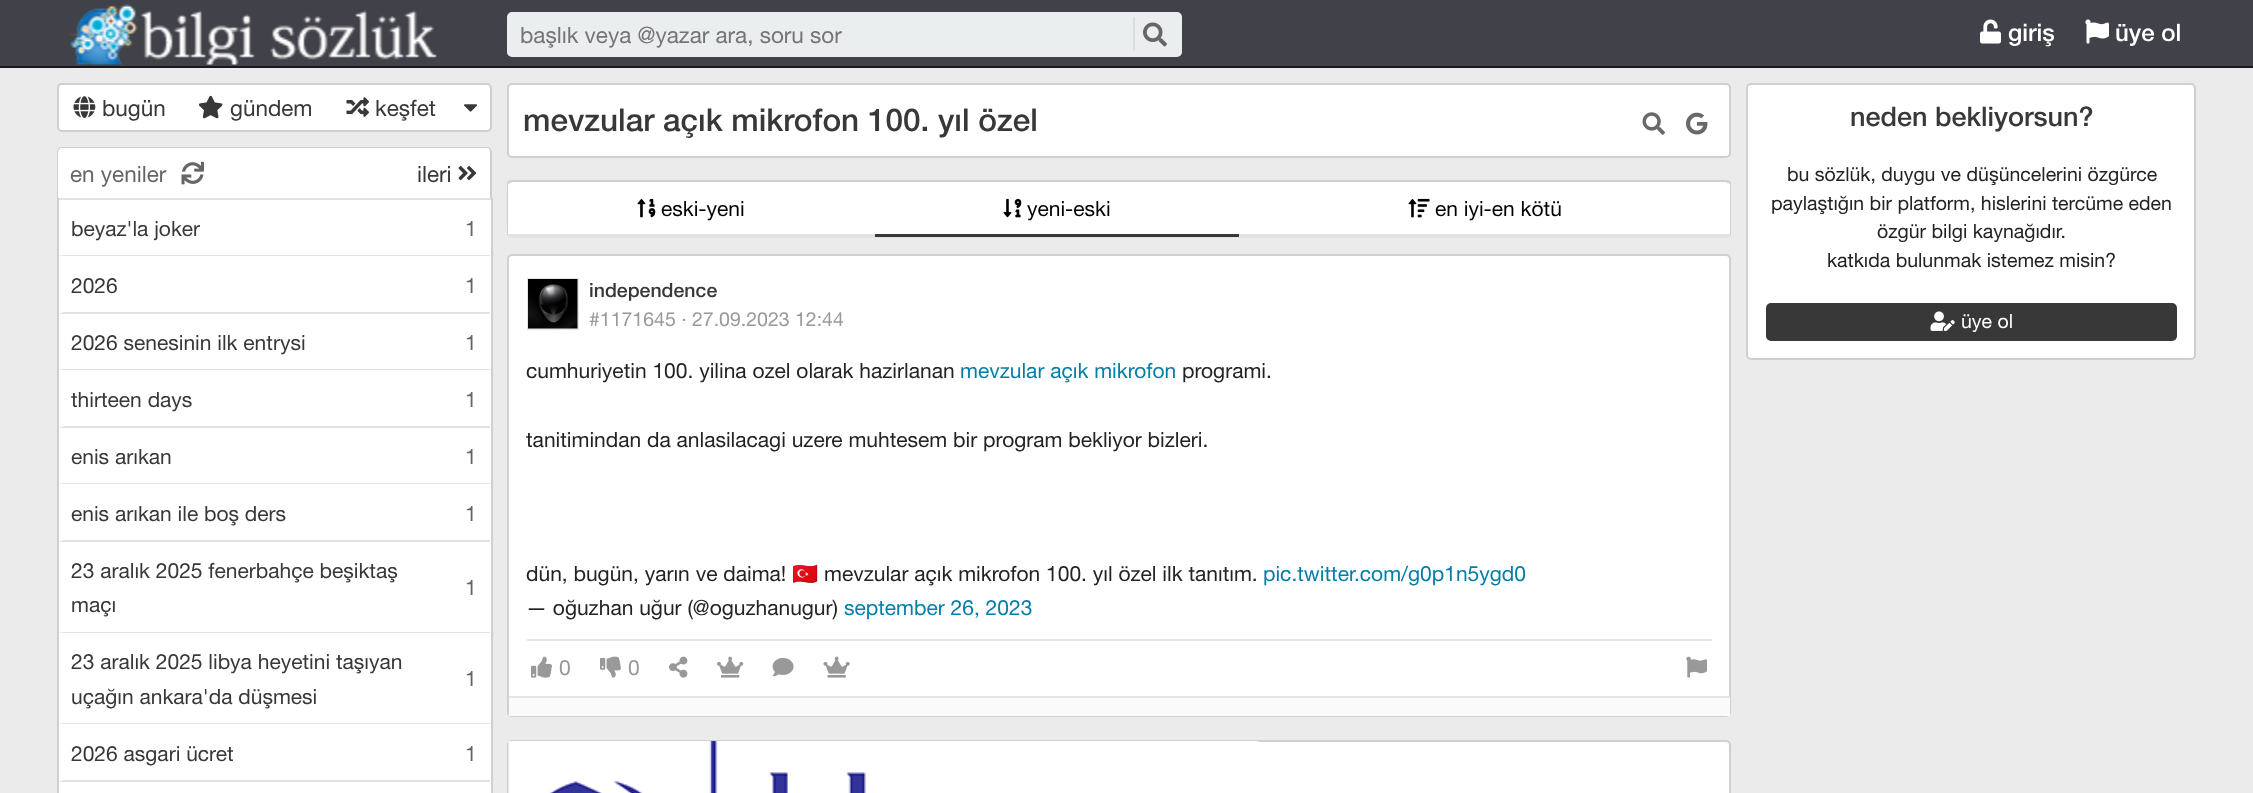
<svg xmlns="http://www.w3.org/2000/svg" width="2253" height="793">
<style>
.a{font:22.5px 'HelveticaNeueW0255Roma';fill:#757575}
.b{font:500 24px 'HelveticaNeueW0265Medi';fill:#fff}
.c{font:22.5px 'HelveticaNeueW0255Roma';fill:#383838}
.d{font:22.5px 'HelveticaNeueW0255Roma';fill:#666}
.e{font:21px 'HelveticaNeueW0255Roma';fill:#383838}
.f{font:21px 'HelveticaNeueW0255Roma';fill:#666}
.g{font:500 31.5px 'HelveticaNeueW0265Medi';fill:#383838}
.h{font:21px 'HelveticaNeueW0255Roma';fill:#000}
.i{font:500 19.5px 'HelveticaNeueW0265Medi';fill:#383838}
.j{font:19.5px 'HelveticaNeueW0255Roma';fill:#999}
.k{font:21px 'HelveticaNeueW0255Roma';fill:#232323}
.l{font:21px 'HelveticaNeueW0255Roma';fill:#037fa7}
.m{font:21px Noto Color Emoji;fill:#232323}
.n{font:21px 'HelveticaNeueW0255Roma';fill:#999}
.o{font:500 27px 'HelveticaNeueW0265Medi';fill:#383838}
.p{font:19.5px 'HelveticaNeueW0255Roma';fill:#232323}
.q{font:19.5px 'HelveticaNeueW0255Roma';fill:#fff}
</style>
<rect width="100%" height="100%" fill="#ebebeb"/>
<path fill="#414149" d="M0 0h2253v66H0z"/>
<path fill="#191919" d="M0 66h2253v2H0z"/>
<image href="1.png" x="69" y="4" width="368" height="61"/>
<rect fill="#ebeeef" stroke="#ebeeef" stroke-width="2" x="508" y="13" width="673" height="43" rx="4"/>
<path fill="#ddd" d="M1133 17h2v34H1133z"/>
<image href="2.png" x="1143" y="22" width="24" height="25"/>
<image href="3.png" x="1980" y="19" width="21" height="25"/>
<image href="4.png" x="2085" y="19" width="24" height="25"/>
<rect fill="#fff" stroke="#cfcfcf" stroke-width="2" x="58" y="84" width="433" height="47" rx="4"/>
<image href="5.png" x="73" y="96" width="23" height="22"/>
<image href="6.png" x="198" y="95" width="25" height="24"/>
<image href="7.png" x="346" y="97" width="23" height="20"/>
<image href="8.png" x="464" y="104" width="13" height="8"/>
<path fill="#fff" d="M62 147h425c3 0 5 2 5 5v46h-435v-46c0-3 2-5 5-5z"/>
<path fill="#cfcfcf" fill-rule="evenodd" d="M62 147h426c2 0 4 2 4 5v46h-435v-46c0-3 2-5 5-5zm0 1h426c1 0 2 2 2 4v46h-432v-46c0-2 2-4 4-4z"/>
<image href="9.png" x="181" y="161" width="23" height="24"/>
<image href="10.png" x="458" y="166" width="19" height="15"/>
<path fill="#fff" d="M59 200h432v593H59z"/>
<path fill="#e2e2e2" d="M57 198h435v2H57z"/>
<path fill="#cfcfcf" d="M491 198h2v595H491z"/>
<path fill="#cfcfcf" d="M57 198h2v595H57z"/>
<path fill="#e2e2e2" d="M490 256h-432l6-1h426z"/>
<path fill="#e2e2e2" d="M490 314h-432l6-2h426z"/>
<path fill="#e2e2e2" d="M490 370h-432l6-1h426z"/>
<path fill="#e2e2e2" d="M490 428h-432l6-2h426z"/>
<path fill="#e2e2e2" d="M490 484h-432l6-1h426z"/>
<path fill="#e2e2e2" d="M490 542h-432l6-2h426z"/>
<path fill="#e2e2e2" d="M490 633h-432l6-1h426z"/>
<path fill="#e2e2e2" d="M490 724h-432l6-1h426z"/>
<path fill="#e2e2e2" d="M490 782h-432l6-2h426z"/>
<rect fill="#fff" stroke="#cfcfcf" stroke-width="2" x="508" y="84" width="1222" height="73" rx="4"/>
<image href="11.png" x="1642" y="112" width="23" height="23"/>
<image href="12.png" x="1686" y="112" width="22" height="23"/>
<path fill="#fff" d="M512 182h1214c2 0 4 1 4 2v50h-1222v-50c0-1 2-2 4-2z"/>
<path fill="#cfcfcf" d="M512 180c-2 0-3 1-4 1l2 2l2-1h1214l2 1l2-2c-1 0-2-1-4-1z"/>
<path fill="#cfcfcf" d="M1731 234v-51l-1-2l-2 2l2 1v50v2z"/>
<path fill="#e2e2e2" d="M1730 236c-1 1-2 2-4 2h-1214c-2 0-3-1-4-2v-2h1222z"/>
<path fill="#cfcfcf" d="M507 184c0 6-1 50 1 52v-2v-50l2-1l-2-2z"/>
<image href="13.png" x="637" y="198" width="19" height="20"/>
<image href="14.png" x="1003" y="198" width="19" height="20"/>
<path fill="#383838" d="M875 234h364v3H875z"/>
<image href="15.png" x="1408" y="198" width="22" height="20"/>
<rect fill="#fff" stroke="#cfcfcf" stroke-width="2" x="508" y="255" width="1222" height="461" rx="4"/>
<path fill="none" stroke="#e6e6e6" stroke-width="2" d="M528 279h50v50H528z"/>
<image href="16.png" x="528" y="279" width="50" height="50"/>
<path fill="#e5e5e5" d="M527 639h1185v2H527z"/>
<image href="17.png" x="531" y="656" width="21" height="22"/>
<image href="18.png" x="600" y="656" width="21" height="22"/>
<image href="19.png" x="669" y="656" width="19" height="22"/>
<image href="20.png" x="717" y="656" width="27" height="22"/>
<image href="21.png" x="772" y="658" width="22" height="19"/>
<image href="22.png" x="823" y="656" width="27" height="22"/>
<image href="23.png" x="1686" y="656" width="21" height="22"/>
<path fill="#fafafa" d="M509 698h1221v18H509z"/>
<path fill="#e5e5e5" d="M509 696h1221v2H509z"/>
<rect fill="#fff" stroke="#cfcfcf" stroke-width="2" x="508" y="741" width="1222" height="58" rx="4"/>
<image href="24.png" x="508" y="741" width="751" height="52"/>
<rect fill="#fff" stroke="#cfcfcf" stroke-width="2" x="1747" y="84" width="448" height="275" rx="4"/>
<rect fill="#383838" x="1766" y="303" width="411" height="38" rx="5"/>
<image href="25.png" x="1930" y="311" width="25" height="20"/>
<text class="a" x="520" y="43">başlık veya @yazar ara, soru sor</text>
<text class="b" x="2008" y="41">giriş</text>
<text class="b" x="2115" y="41">üye ol</text>
<text class="c" x="102" y="116">bugün</text>
<text class="c" x="230" y="116">gündem</text>
<text class="c" x="375" y="116">keşfet</text>
<text class="d" x="70" y="182">en yeniler</text>
<text class="c" x="417" y="182">ileri</text>
<text class="e" x="71" y="236">beyaz'la joker</text>
<text class="f" x="465" y="236">1</text>
<text class="e" x="71" y="293">2026</text>
<text class="f" x="465" y="293">1</text>
<text class="e" x="71" y="350">2026 senesinin ilk entrysi</text>
<text class="f" x="465" y="350">1</text>
<text class="e" x="71" y="407">thirteen days</text>
<text class="f" x="465" y="407">1</text>
<text class="e" x="71" y="464">enis arıkan</text>
<text class="f" x="465" y="464">1</text>
<text class="e" x="71" y="521">enis arıkan ile boş ders</text>
<text class="f" x="465" y="521">1</text>
<text class="e" x="71" y="578">23 aralık 2025 fenerbahçe beşiktaş</text>
<text class="e" x="71" y="612">maçı</text>
<text class="f" x="465" y="595">1</text>
<text class="e" x="71" y="669">23 aralık 2025 libya heyetini taşıyan</text>
<text class="e" x="71" y="704">uçağın ankara'da düşmesi</text>
<text class="f" x="465" y="686">1</text>
<text class="e" x="71" y="761">2026 asgari ücret</text>
<text class="f" x="465" y="761">1</text>
<text class="g" x="523" y="131">mevzular açık mikrofon 100. yıl özel</text>
<text class="h" x="661" y="216">eski-yeni</text>
<text class="h" x="1027" y="216">yeni-eski</text>
<text class="h" x="1435" y="216">en iyi-en kötü</text>
<text class="i" x="589" y="297">independence</text>
<text class="j" x="589" y="326">#1171645 · 27.09.2023 12:44</text>
<text class="k" x="526" y="378">cumhuriyetin 100. yilina ozel olarak hazirlanan</text>
<text class="l" x="960" y="378">mevzular açık mikrofon</text>
<text class="k" x="1182" y="378">programi.</text>
<text class="k" x="526" y="447">tanitimindan da anlasilacagi uzere muhtesem bir program bekliyor bizleri.</text>
<text class="k" x="526" y="581">dün, bugün, yarın ve daima!</text>
<text class="m" x="792" y="581">🇹🇷</text>
<text class="k" x="824" y="581">mevzular açık mikrofon 100. yıl özel ilk tanıtım.</text>
<text class="l" x="1263" y="581">pic.twitter.com/g0p1n5ygd0</text>
<text class="k" x="526" y="615">— oğuzhan uğur (@oguzhanugur)</text>
<text class="l" x="844" y="615">september 26, 2023</text>
<text class="n" x="559" y="675">0</text>
<text class="n" x="628" y="675">0</text>
<text class="o" x="1850" y="126">neden bekliyorsun?</text>
<text class="p" x="1787" y="181">bu sözlük, duygu ve düşüncelerini özgürce</text>
<text class="p" x="1771" y="210">paylaştığın bir platform, hislerini tercüme eden</text>
<text class="p" x="1877" y="238">özgür bilgi kaynağıdır.</text>
<text class="p" x="1827" y="267">katkıda bulunmak istemez misin?</text>
<text class="q" x="1961" y="328">üye ol</text>
</svg>
